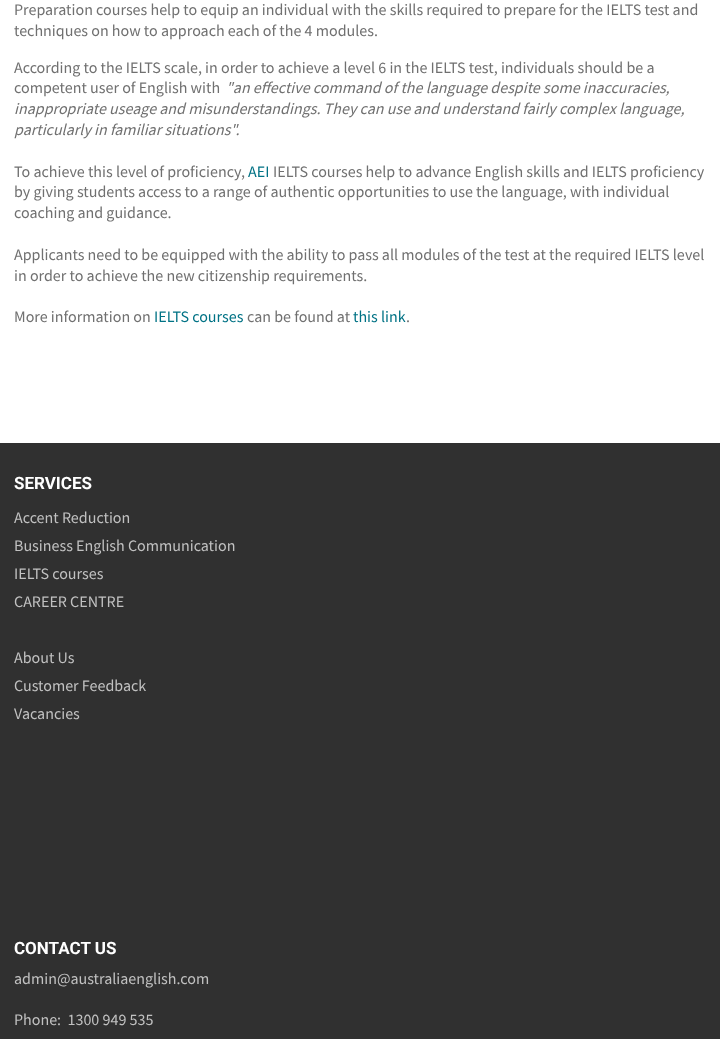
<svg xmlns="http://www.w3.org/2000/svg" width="720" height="1039">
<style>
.a{font:16px Source Sans Pro;fill:#707070}
.b{font:italic 16px Source Sans Pro;fill:#707070}
.c{font:16px Source Sans Pro;fill:#007285}
.d{font:bold 17px Roboto;fill:#fff}
.e{font:16px Source Sans Pro;fill:#c1c1c1}
</style>
<rect width="100%" height="100%" fill="#fff"/>
<path fill="#303030" d="M0 443h720v596H0z"/>
<text class="a" x="14" y="15">Preparation courses help to equip an individual with the skills required to prepare for the IELTS test and</text>
<text class="a" x="14" y="36">techniques on how to approach each of the 4 modules.</text>
<text class="a" x="14" y="73">According to the IELTS scale, in order to achieve a level 6 in the IELTS test, individuals should be a</text>
<text class="a" x="14" y="93">competent user of English with</text>
<text class="b" x="226" y="93">"an effective command of the language despite some inaccuracies,</text>
<text class="b" x="14" y="114">inappropriate useage and misunderstandings. They can use and understand fairly complex language,</text>
<text class="b" x="14" y="135">particularly in familiar situations".</text>
<text class="a" x="14" y="177">To achieve this level of proficiency,</text>
<text class="c" x="248" y="177">AEI</text>
<text class="a" x="273" y="177">IELTS courses help to advance English skills and IELTS proficiency</text>
<text class="a" x="14" y="197">by giving students access to a range of authentic opportunities to use the language, with individual</text>
<text class="a" x="14" y="218">coaching and guidance.</text>
<text class="a" x="14" y="260">Applicants need to be equipped with the ability to pass all modules of the test at the required IELTS level</text>
<text class="a" x="14" y="281">in order to achieve the new citizenship requirements.</text>
<text class="a" x="14" y="322">More information on</text>
<text class="c" x="154" y="322">IELTS courses</text>
<text class="a" x="247" y="322">can be found at</text>
<text class="c" x="353" y="322">this link</text>
<text class="a" x="406" y="322">.</text>
<text class="d" x="14" y="489">SERVICES</text>
<text class="e" x="14" y="523">Accent Reduction</text>
<text class="e" x="14" y="551">Business English Communication</text>
<text class="e" x="14" y="579">IELTS courses</text>
<text class="e" x="14" y="607">CAREER CENTRE</text>
<text class="e" x="14" y="663">About Us</text>
<text class="e" x="14" y="691">Customer Feedback</text>
<text class="e" x="14" y="719">Vacancies</text>
<text class="d" x="14" y="954">CONTACT US</text>
<text class="e" x="14" y="984">admin@australiaenglish.com</text>
<text class="e" xml:space="preserve" x="14" y="1025">Phone:  1300 949 535</text>
</svg>
